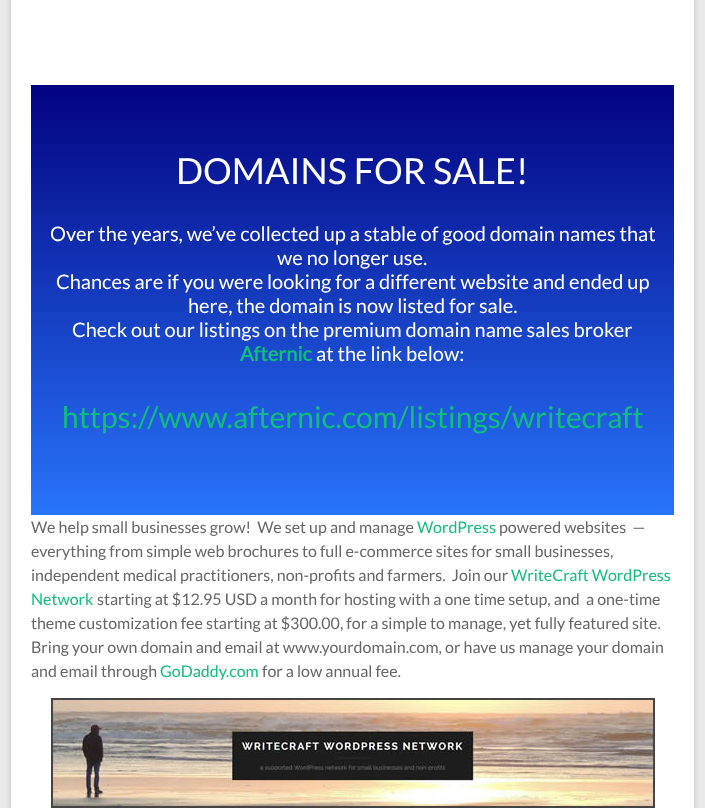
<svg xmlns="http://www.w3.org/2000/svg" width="705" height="808">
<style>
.a{font:36px Lato;fill:#fff}
.b{font:20px Lato;fill:#fff}
.c{font:bold 20px Lato;fill:#0fbe7c}
.d{font:30px Lato;fill:#0fbe7c}
.e{font:16px Lato;fill:#666}
.f{font:16px Lato;fill:#0fbe7c}
</style>
<defs>
<linearGradient id="g1" gradientUnits="userSpaceOnUse" x1="353" y1="85" x2="353" y2="515"><stop offset="0" stop-color="#020381"/><stop offset="1" stop-color="#2874fc"/></linearGradient>
</defs>
<rect width="100%" height="100%" fill="#eaeaea"/>
<path fill="#6464644d" filter="blur(3px)" d="M11 -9h683v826H11z"/>
<path fill="#fff" d="M11 0h683v808H11z"/>
<path fill="url(#g1)" d="M31 85h643v430H31z"/>
<image href="1.png" x="51" y="698" width="604" height="110"/>
<text class="a" x="176" y="184">DOMAINS FOR SALE!</text>
<text class="b" x="50" y="241">Over the years, we’ve collected up a stable of good domain names that</text>
<text class="b" x="277" y="265">we no longer use.</text>
<text class="b" x="56" y="289">Chances are if you were looking for a different website and ended up</text>
<text class="b" x="188" y="313">here, the domain is now listed for sale.</text>
<text class="b" x="72" y="337">Check out our listings on the premium domain name sales broker</text>
<text class="c" x="240" y="361">Afternic</text>
<text class="b" x="316" y="361">at the link below:</text>
<text class="d" x="62" y="428">https://www.afternic.com/listings/writecraft</text>
<text class="e" xml:space="preserve" x="31" y="533">We help small businesses grow!  We set up and manage</text>
<text class="f" x="417" y="533">WordPress</text>
<text class="e" xml:space="preserve" x="499" y="533">powered websites  —</text>
<text class="e" x="31" y="557">everything from simple web brochures to full e-commerce sites for small businesses,</text>
<text class="e" xml:space="preserve" x="31" y="581">independent medical practitioners, non-profits and farmers.  Join our</text>
<text class="f" x="511" y="581">WriteCraft WordPress</text>
<text class="f" x="31" y="605">Network</text>
<text class="e" xml:space="preserve" x="97" y="605">starting at $12.95 USD a month for hosting with a one time setup, and  a one-time</text>
<text class="e" x="31" y="629">theme customization fee starting at $300.00, for a simple to manage, yet fully featured site.</text>
<text class="e" x="31" y="653">Bring your own domain and email at www.yourdomain.com, or have us manage your domain</text>
<text class="e" x="31" y="677">and email through</text>
<text class="f" x="160" y="677">GoDaddy.com</text>
<text class="e" x="262" y="677">for a low annual fee.</text>
</svg>
